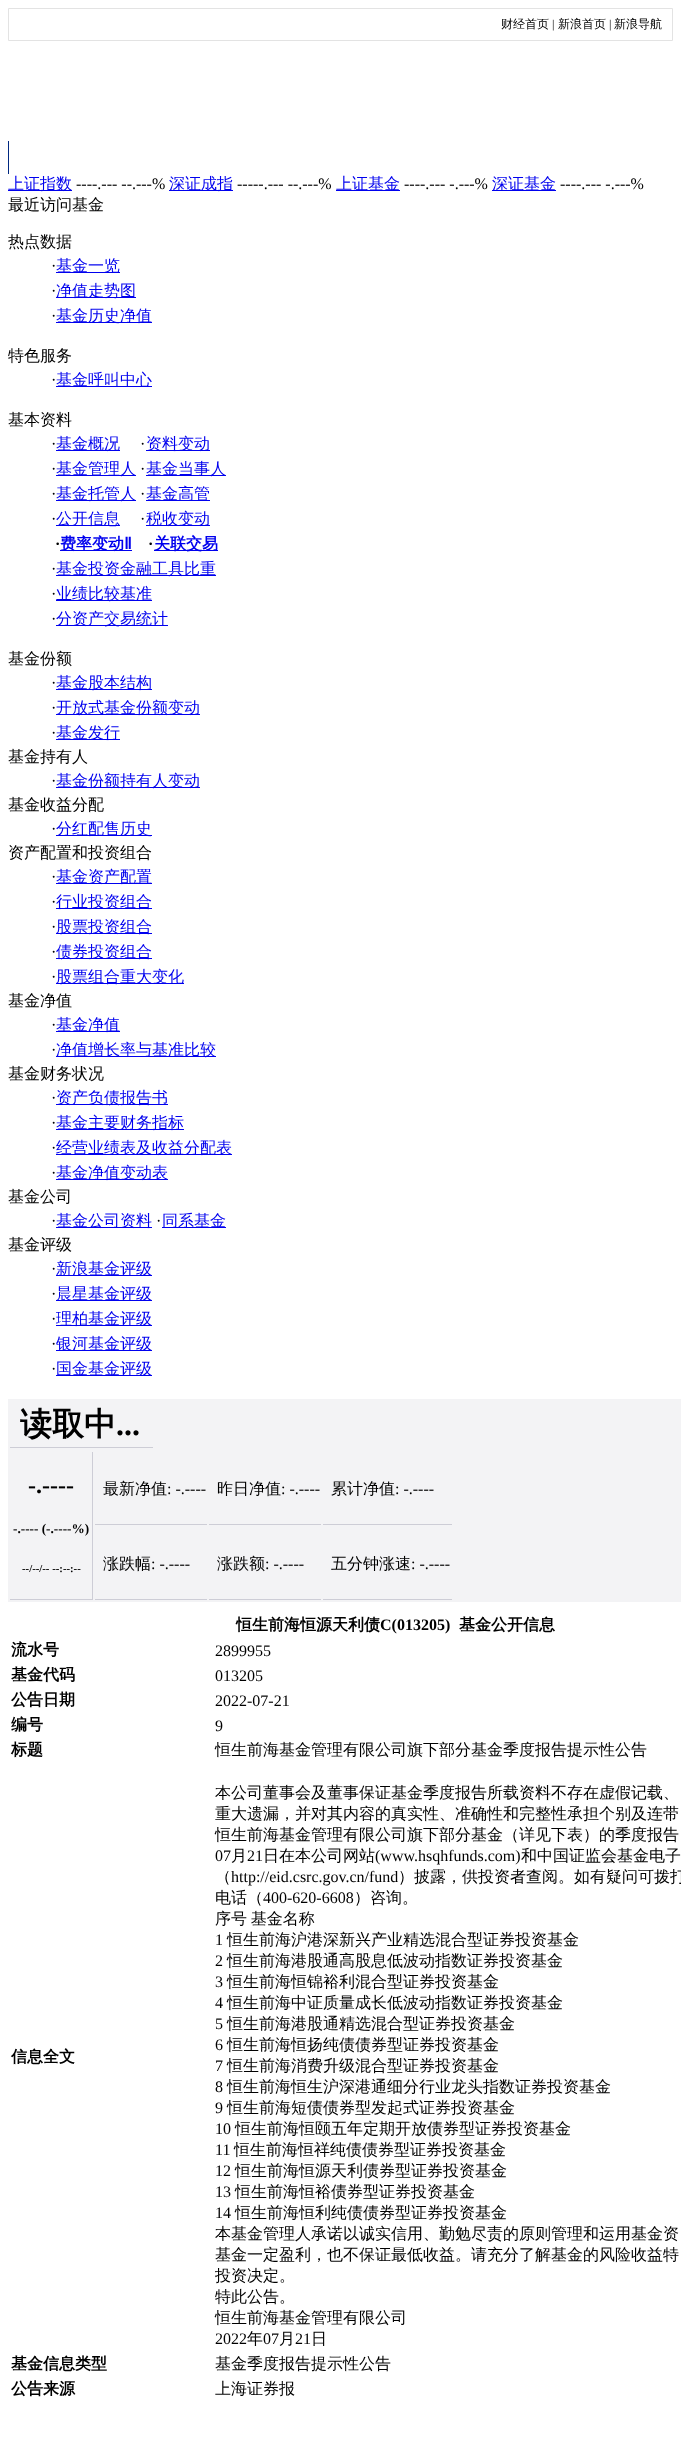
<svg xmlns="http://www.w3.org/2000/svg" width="681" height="2459">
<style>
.a{font:500 12px WenQuanYi Zen Hei;fill:#000}
.b{font:12px Liberation Serif;fill:#000}
.c{font:500 16px WenQuanYi Zen Hei;fill:#00e}
.d{font:16px Liberation Serif;fill:#000}
.e{font:500 16px WenQuanYi Zen Hei;fill:#000}
.f{font:bold 16px Liberation Serif;fill:#000}
.g{font:bold 16px WenQuanYi Zen Hei;fill:#00e}
.h{font:bold 16px DejaVu Sans;fill:#00e}
.i{font:bold 32px WenQuanYi Zen Hei;fill:#000}
.j{font:bold 32px Liberation Serif;fill:#000}
.k{font:bold 24px Liberation Serif;fill:#000}
.l{font:bold 13.25px Liberation Serif;fill:#000}
.m{font:bold 10.75px Liberation Serif;fill:#000}
.n{font:bold 16px WenQuanYi Zen Hei;fill:#000}
</style>
<rect width="100%" height="100%" fill="#fff"/>
<path fill="none" stroke="#e3e3e3" d="M8.5 8.5h664v32H8.5z"/>
<path fill="#002880" d="M8 141h1v33H8z"/>
<path fill="#00e" d="M8 190h64v1H8z"/>
<path fill="#00e" d="M169 190h64v1H169z"/>
<path fill="#00e" d="M336 190h64v1H336z"/>
<path fill="#00e" d="M492 190h64v1H492z"/>
<path fill="#00e" d="M56 272h64v1H56z"/>
<path fill="#00e" d="M56 297h80v1H56z"/>
<path fill="#00e" d="M56 322h96v1H56z"/>
<path fill="#00e" d="M56 386h96v1H56z"/>
<path fill="#00e" d="M56 450h64v1H56z"/>
<path fill="#00e" d="M146 450h64v1H146z"/>
<path fill="#00e" d="M56 475h80v1H56z"/>
<path fill="#00e" d="M146 475h80v1H146z"/>
<path fill="#00e" d="M56 500h80v1H56z"/>
<path fill="#00e" d="M146 500h64v1H146z"/>
<path fill="#00e" d="M56 525h64v1H56z"/>
<path fill="#00e" d="M146 525h64v1H146z"/>
<path fill="#00e" d="M60 550h72v1H60z"/>
<path fill="#00e" d="M154 550h64v1H154z"/>
<path fill="#00e" d="M56 575h160v1H56z"/>
<path fill="#00e" d="M56 600h96v1H56z"/>
<path fill="#00e" d="M56 625h112v1H56z"/>
<path fill="#00e" d="M56 689h96v1H56z"/>
<path fill="#00e" d="M56 714h144v1H56z"/>
<path fill="#00e" d="M56 739h64v1H56z"/>
<path fill="#00e" d="M56 787h144v1H56z"/>
<path fill="#00e" d="M56 835h96v1H56z"/>
<path fill="#00e" d="M56 883h96v1H56z"/>
<path fill="#00e" d="M56 908h96v1H56z"/>
<path fill="#00e" d="M56 933h96v1H56z"/>
<path fill="#00e" d="M56 958h96v1H56z"/>
<path fill="#00e" d="M56 983h128v1H56z"/>
<path fill="#00e" d="M56 1031h64v1H56z"/>
<path fill="#00e" d="M56 1056h160v1H56z"/>
<path fill="#00e" d="M56 1104h112v1H56z"/>
<path fill="#00e" d="M56 1129h128v1H56z"/>
<path fill="#00e" d="M56 1154h176v1H56z"/>
<path fill="#00e" d="M56 1179h112v1H56z"/>
<path fill="#00e" d="M56 1227h96v1H56z"/>
<path fill="#00e" d="M162 1227h64v1H162z"/>
<path fill="#00e" d="M56 1275h96v1H56z"/>
<path fill="#00e" d="M56 1300h96v1H56z"/>
<path fill="#00e" d="M56 1325h96v1H56z"/>
<path fill="#00e" d="M56 1350h96v1H56z"/>
<path fill="#00e" d="M56 1375h96v1H56z"/>
<path fill="#f3f3f5" d="M8 1399h673v203H8z"/>
<path fill="#cdcdd6" d="M10 1447h143v1H10z"/>
<path fill="#cdcdd6" d="M92 1452h1v148H92z"/>
<path fill="#cdcdd6" d="M10 1599h83v1H10z"/>
<path fill="#cdcdd6" d="M95 1524h112v1H95z"/>
<path fill="#cdcdd6" d="M209 1524h112v1H209z"/>
<path fill="#cdcdd6" d="M323 1524h129v1H323z"/>
<path fill="#cdcdd6" d="M95 1599h112v1H95z"/>
<path fill="#cdcdd6" d="M209 1599h112v1H209z"/>
<path fill="#cdcdd6" d="M323 1599h129v1H323z"/>
<text class="a" x="501" y="28">财经首页</text>
<text class="b" x="552" y="28">|</text>
<text class="a" x="558" y="28">新浪首页</text>
<text class="b" x="609" y="28">|</text>
<text class="a" x="614" y="28">新浪导航</text>
<text class="c" x="8" y="189">上证指数</text>
<text class="d" x="76" y="189">----.--- --.---%</text>
<text class="c" x="169" y="189">深证成指</text>
<text class="d" x="237" y="189">-----.--- --.---%</text>
<text class="c" x="336" y="189">上证基金</text>
<text class="d" x="404" y="189">----.--- -.---%</text>
<text class="c" x="492" y="189">深证基金</text>
<text class="d" x="560" y="189">----.--- -.---%</text>
<text class="e" x="8" y="210">最近访问基金</text>
<text class="e" x="8" y="247">热点数据</text>
<text class="d" x="51" y="271">·</text>
<text class="c" x="56" y="271">基金一览</text>
<text class="d" x="51" y="296">·</text>
<text class="c" x="56" y="296">净值走势图</text>
<text class="d" x="51" y="321">·</text>
<text class="c" x="56" y="321">基金历史净值</text>
<text class="e" x="8" y="361">特色服务</text>
<text class="d" x="51" y="385">·</text>
<text class="c" x="56" y="385">基金呼叫中心</text>
<text class="e" x="8" y="425">基本资料</text>
<text class="d" x="51" y="449">·</text>
<text class="c" x="56" y="449">基金概况</text>
<text class="d" x="140" y="449">·</text>
<text class="c" x="146" y="449">资料变动</text>
<text class="d" x="51" y="474">·</text>
<text class="c" x="56" y="474">基金管理人</text>
<text class="d" x="140" y="474">·</text>
<text class="c" x="146" y="474">基金当事人</text>
<text class="d" x="51" y="499">·</text>
<text class="c" x="56" y="499">基金托管人</text>
<text class="d" x="140" y="499">·</text>
<text class="c" x="146" y="499">基金高管</text>
<text class="d" x="51" y="524">·</text>
<text class="c" x="56" y="524">公开信息</text>
<text class="d" x="140" y="524">·</text>
<text class="c" x="146" y="524">税收变动</text>
<text class="f" x="55" y="549">·</text>
<text class="g" x="60" y="549">费率变动</text>
<text class="h" x="124" y="549">Ⅱ</text>
<text class="f" x="148" y="549">·</text>
<text class="g" x="154" y="549">关联交易</text>
<text class="d" x="51" y="574">·</text>
<text class="c" x="56" y="574">基金投资金融工具比重</text>
<text class="d" x="51" y="599">·</text>
<text class="c" x="56" y="599">业绩比较基准</text>
<text class="d" x="51" y="624">·</text>
<text class="c" x="56" y="624">分资产交易统计</text>
<text class="e" x="8" y="664">基金份额</text>
<text class="d" x="51" y="688">·</text>
<text class="c" x="56" y="688">基金股本结构</text>
<text class="d" x="51" y="713">·</text>
<text class="c" x="56" y="713">开放式基金份额变动</text>
<text class="d" x="51" y="738">·</text>
<text class="c" x="56" y="738">基金发行</text>
<text class="e" x="8" y="762">基金持有人</text>
<text class="d" x="51" y="786">·</text>
<text class="c" x="56" y="786">基金份额持有人变动</text>
<text class="e" x="8" y="810">基金收益分配</text>
<text class="d" x="51" y="834">·</text>
<text class="c" x="56" y="834">分红配售历史</text>
<text class="e" x="8" y="858">资产配置和投资组合</text>
<text class="d" x="51" y="882">·</text>
<text class="c" x="56" y="882">基金资产配置</text>
<text class="d" x="51" y="907">·</text>
<text class="c" x="56" y="907">行业投资组合</text>
<text class="d" x="51" y="932">·</text>
<text class="c" x="56" y="932">股票投资组合</text>
<text class="d" x="51" y="957">·</text>
<text class="c" x="56" y="957">债券投资组合</text>
<text class="d" x="51" y="982">·</text>
<text class="c" x="56" y="982">股票组合重大变化</text>
<text class="e" x="8" y="1006">基金净值</text>
<text class="d" x="51" y="1030">·</text>
<text class="c" x="56" y="1030">基金净值</text>
<text class="d" x="51" y="1055">·</text>
<text class="c" x="56" y="1055">净值增长率与基准比较</text>
<text class="e" x="8" y="1079">基金财务状况</text>
<text class="d" x="51" y="1103">·</text>
<text class="c" x="56" y="1103">资产负债报告书</text>
<text class="d" x="51" y="1128">·</text>
<text class="c" x="56" y="1128">基金主要财务指标</text>
<text class="d" x="51" y="1153">·</text>
<text class="c" x="56" y="1153">经营业绩表及收益分配表</text>
<text class="d" x="51" y="1178">·</text>
<text class="c" x="56" y="1178">基金净值变动表</text>
<text class="e" x="8" y="1202">基金公司</text>
<text class="d" x="51" y="1226">·</text>
<text class="c" x="56" y="1226">基金公司资料</text>
<text class="d" x="156" y="1226">·</text>
<text class="c" x="162" y="1226">同系基金</text>
<text class="e" x="8" y="1250">基金评级</text>
<text class="d" x="51" y="1274">·</text>
<text class="c" x="56" y="1274">新浪基金评级</text>
<text class="d" x="51" y="1299">·</text>
<text class="c" x="56" y="1299">晨星基金评级</text>
<text class="d" x="51" y="1324">·</text>
<text class="c" x="56" y="1324">理柏基金评级</text>
<text class="d" x="51" y="1349">·</text>
<text class="c" x="56" y="1349">银河基金评级</text>
<text class="d" x="51" y="1374">·</text>
<text class="c" x="56" y="1374">国金基金评级</text>
<text class="i" x="20" y="1435">读取中</text>
<text class="j" x="116" y="1435">...</text>
<text class="k" x="28" y="1493">-.----</text>
<text class="l" x="13" y="1533">-.---- (-.----%)</text>
<text class="m" x="22" y="1572">--/--/-- --:--:--</text>
<text class="e" x="103" y="1494">最新净值</text>
<text class="d" x="167" y="1494">: -.----</text>
<text class="e" x="217" y="1494">昨日净值</text>
<text class="d" x="281" y="1494">: -.----</text>
<text class="e" x="331" y="1494">累计净值</text>
<text class="d" x="395" y="1494">: -.----</text>
<text class="e" x="103" y="1569">涨跌幅</text>
<text class="d" x="151" y="1569">: -.----</text>
<text class="e" x="217" y="1569">涨跌额</text>
<text class="d" x="265" y="1569">: -.----</text>
<text class="e" x="331" y="1569">五分钟涨速</text>
<text class="d" x="411" y="1569">: -.----</text>
<text class="n" x="236" y="1630">恒生前海恒源天利债</text>
<text class="f" x="380" y="1630">C(013205)</text>
<text class="n" x="459" y="1630">基金公开信息</text>
<text class="n" x="11" y="1655">流水号</text>
<text class="d" x="215" y="1656">2899955</text>
<text class="n" x="11" y="1680">基金代码</text>
<text class="d" x="215" y="1681">013205</text>
<text class="n" x="11" y="1705">公告日期</text>
<text class="d" x="215" y="1706">2022-07-21</text>
<text class="n" x="11" y="1730">编号</text>
<text class="d" x="215" y="1731">9</text>
<text class="n" x="11" y="1755">标题</text>
<text class="e" x="215" y="1755">恒生前海基金管理有限公司旗下部分基金季度报告提示性公告</text>
<text class="n" x="11" y="2062">信息全文</text>
<text class="e" x="215" y="1798">本公司董事会及董事保证基金季度报告所载资料不存在虚假记载、</text>
<text class="e" x="215" y="1819">重大遗漏，并对其内容的真实性、准确性和完整性承担个别及连带</text>
<text class="e" x="215" y="1840">恒生前海基金管理有限公司旗下部分基金（详见下表）的季度报告</text>
<text class="d" x="215" y="1861">07</text>
<text class="e" x="231" y="1861">月</text>
<text class="d" x="247" y="1861">21</text>
<text class="e" x="263" y="1861">日在本公司网站</text>
<text class="d" x="375" y="1861">(www.hsqhfunds.com)</text>
<text class="e" x="521" y="1861">和中国证监会基金电子</text>
<text class="e" x="215" y="1882">（</text>
<text class="d" x="231" y="1882">http://eid.csrc.gov.cn/fund</text>
<text class="e" x="398" y="1882">）披露，供投资者查阅。如有疑问可拨打</text>
<text class="e" x="215" y="1903">电话（</text>
<text class="d" x="263" y="1903">400-620-6608</text>
<text class="e" x="354" y="1903">）咨询。</text>
<text class="e" x="215" y="1924" word-spacing="-1">序号 基金名称</text>
<text class="d" x="215" y="1945">1</text>
<text class="e" x="227" y="1945">恒生前海沪港深新兴产业精选混合型证券投资基金</text>
<text class="d" x="215" y="1966">2</text>
<text class="e" x="227" y="1966">恒生前海港股通高股息低波动指数证券投资基金</text>
<text class="d" x="215" y="1987">3</text>
<text class="e" x="227" y="1987">恒生前海恒锦裕利混合型证券投资基金</text>
<text class="d" x="215" y="2008">4</text>
<text class="e" x="227" y="2008">恒生前海中证质量成长低波动指数证券投资基金</text>
<text class="d" x="215" y="2029">5</text>
<text class="e" x="227" y="2029">恒生前海港股通精选混合型证券投资基金</text>
<text class="d" x="215" y="2050">6</text>
<text class="e" x="227" y="2050">恒生前海恒扬纯债债券型证券投资基金</text>
<text class="d" x="215" y="2071">7</text>
<text class="e" x="227" y="2071">恒生前海消费升级混合型证券投资基金</text>
<text class="d" x="215" y="2092">8</text>
<text class="e" x="227" y="2092">恒生前海恒生沪深港通细分行业龙头指数证券投资基金</text>
<text class="d" x="215" y="2113">9</text>
<text class="e" x="227" y="2113">恒生前海短债债券型发起式证券投资基金</text>
<text class="d" x="215" y="2134">10</text>
<text class="e" x="235" y="2134">恒生前海恒颐五年定期开放债券型证券投资基金</text>
<text class="d" x="215" y="2155">11</text>
<text class="e" x="234" y="2155">恒生前海恒祥纯债债券型证券投资基金</text>
<text class="d" x="215" y="2176">12</text>
<text class="e" x="235" y="2176">恒生前海恒源天利债券型证券投资基金</text>
<text class="d" x="215" y="2197">13</text>
<text class="e" x="235" y="2197">恒生前海恒裕债券型证券投资基金</text>
<text class="d" x="215" y="2218">14</text>
<text class="e" x="235" y="2218">恒生前海恒利纯债债券型证券投资基金</text>
<text class="e" x="215" y="2239">本基金管理人承诺以诚实信用、勤勉尽责的原则管理和运用基金资</text>
<text class="e" x="215" y="2260">基金一定盈利，也不保证最低收益。请充分了解基金的风险收益特</text>
<text class="e" x="215" y="2281">投资决定。</text>
<text class="e" x="215" y="2302">特此公告。</text>
<text class="e" x="215" y="2323">恒生前海基金管理有限公司</text>
<text class="d" x="215" y="2344">2022</text>
<text class="e" x="247" y="2344">年</text>
<text class="d" x="263" y="2344">07</text>
<text class="e" x="279" y="2344">月</text>
<text class="d" x="295" y="2344">21</text>
<text class="e" x="311" y="2344">日</text>
<text class="n" x="11" y="2369">基金信息类型</text>
<text class="e" x="215" y="2369">基金季度报告提示性公告</text>
<text class="n" x="11" y="2394">公告来源</text>
<text class="e" x="215" y="2394">上海证券报</text>
</svg>
